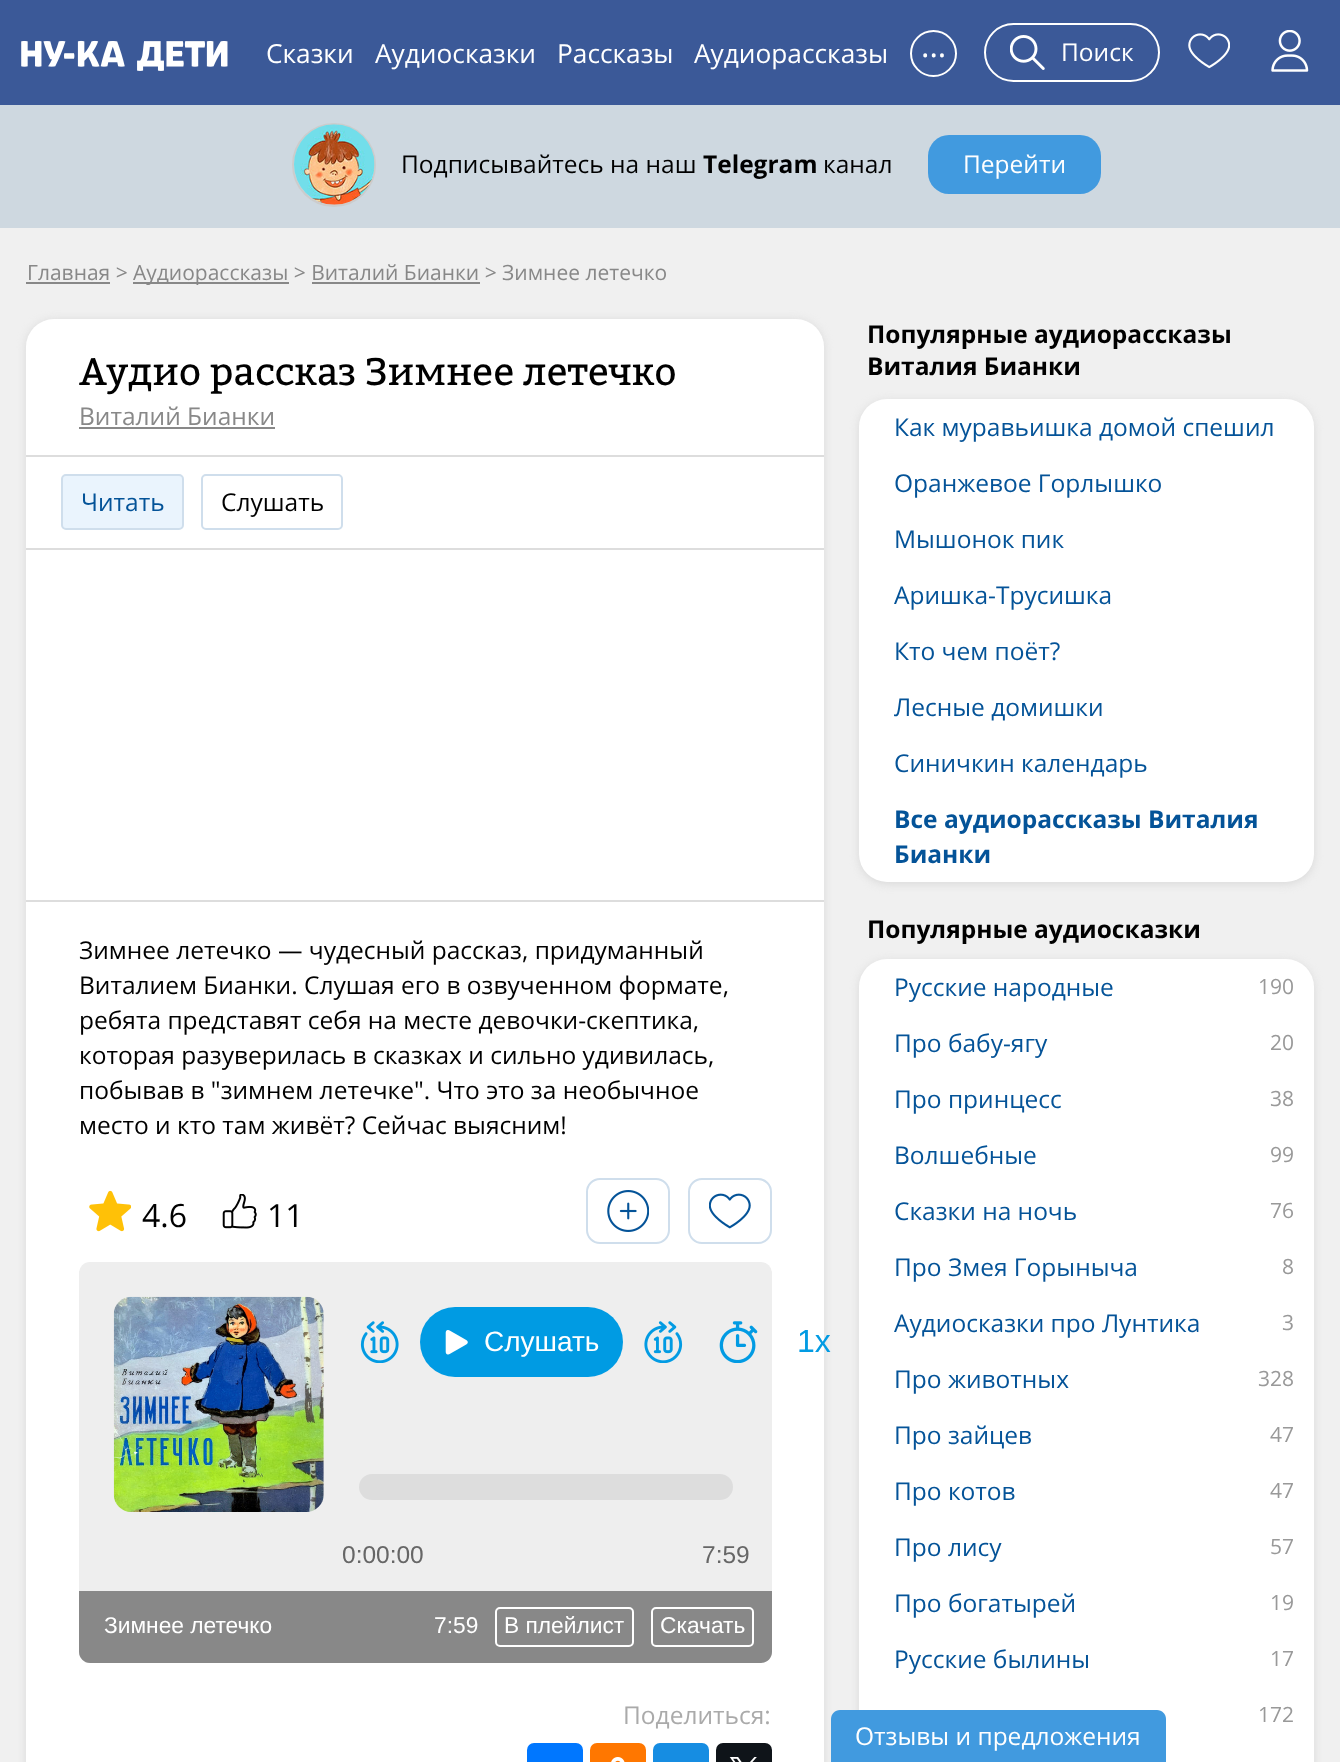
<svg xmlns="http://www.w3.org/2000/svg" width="1340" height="1762">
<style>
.a{font:26.25px Open Sans;fill:#fff}
.b{font:32px Open Sans;fill:#fff}
.c{font:24.5px Open Sans;fill:#fff}
.d{font:24.5px Open Sans;fill:#000}
.e{font:bold 24.5px Open Sans;fill:#000}
.f{font:21px Open Sans;fill:#888}
.g{font:38.5px Bitter;fill:#000}
.h{font:24.5px Open Sans;fill:#888}
.i{font:24.5px Open Sans;fill:#045398}
.j{font:32px Open Sans;fill:#000}
.k{font:28px Liberation Sans;fill:#fff}
.l{font:32px Liberation Sans;fill:#029be3}
.m{font:24.5px Liberation Sans;fill:#666}
.n{font:22.75px Liberation Sans;fill:#fff}
.o{font:24.5px Open Sans;fill:#aaa}
.p{font:bold 24.5px Open Sans;fill:#045398}
.q{font:21px Open Sans;fill:#999}
</style>
<rect width="100%" height="100%" fill="#f0f0f0"/>
<path fill="#3b5998" d="M0 0h1340v105H0z"/>
<image href="1.png" x="21" y="40" width="207" height="31"/>
<circle fill="none" stroke="#fff" stroke-width="2" cx="933.5" cy="53.5" r="22.5"/>
<rect fill="none" stroke="#fff" stroke-width="2" x="985" y="24" width="174" height="57" rx="28.5"/>
<image href="2.png" x="1010" y="35" width="35" height="35"/>
<image href="3.png" x="1188" y="33" width="42" height="36"/>
<image href="4.png" x="1271" y="30" width="38" height="42"/>
<path fill="#ced8e0" d="M0 105h1340v123H0z"/>
<circle fill="none" stroke="#ccc" stroke-width="2" cx="334" cy="165" r="41"/>
<image href="5.png" x="294" y="124" width="81" height="81"/>
<rect fill="#419adf" x="928" y="135" width="173" height="59" rx="21"/>
<path fill="#888" d="M26 282h84v2H26z"/>
<path fill="#888" d="M133 282h156v2H133z"/>
<path fill="#888" d="M312 282h168v2H312z"/>
<rect fill="#d9d9d9" filter="blur(4.5px)" x="26" y="320" width="798" height="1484" rx="28"/>
<rect fill="#fff" x="26" y="319" width="798" height="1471" rx="28"/>
<path fill="#ddd" d="M26 455h798v2H26z"/>
<path fill="#888" d="M79 427h196v2H79z"/>
<path fill="#ddd" d="M26 548h798v2H26z"/>
<rect fill="#eaf4fd" stroke="#cfdeec" stroke-width="2" x="62" y="475" width="121" height="54" rx="4"/>
<rect fill="none" stroke="#cfdeec" stroke-width="2" x="202" y="475" width="140" height="54" rx="4"/>
<path fill="#ddd" d="M26 900h798v2H26z"/>
<image href="6.png" x="89" y="1190" width="42" height="42"/>
<image href="7.png" x="222" y="1194" width="35" height="35"/>
<rect fill="none" stroke="#cfdeec" stroke-width="2" x="587" y="1179" width="82" height="64" rx="13"/>
<image href="8.png" x="607" y="1190" width="42" height="42"/>
<rect fill="none" stroke="#cfdeec" stroke-width="2" x="689" y="1179" width="82" height="64" rx="13"/>
<image href="9.png" x="709" y="1193" width="42" height="36"/>
<rect fill="#eee" x="79" y="1262" width="693" height="401" rx="11"/>
<image href="10.png" x="113" y="1296" width="211" height="216"/>
<image href="11.png" x="360" y="1321" width="39" height="42"/>
<rect fill="#009be3" x="420" y="1307" width="203" height="70" rx="35"/>
<image href="12.png" x="445" y="1330" width="23" height="25"/>
<image href="13.png" x="644" y="1321" width="39" height="42"/>
<image href="14.png" x="719" y="1321" width="39" height="42"/>
<rect fill="#ddd" x="359" y="1474" width="374" height="26" rx="13"/>
<path fill="#888" d="M79 1591h693v61c0 6-5 11-11 11h-671c-6 0-11-5-11-11z"/>
<rect fill="none" stroke="#fff" stroke-width="2" x="496" y="1608" width="137" height="38" rx="4"/>
<rect fill="none" stroke="#fff" stroke-width="2" x="652" y="1608" width="101" height="38" rx="4"/>
<rect fill="#07f" x="527" y="1743" width="56" height="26" rx="7"/>
<rect fill="#f70" x="590" y="1743" width="56" height="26" rx="7"/>
<image href="15.png" x="611" y="1757" width="14" height="5"/>
<rect fill="#168de2" x="653" y="1743" width="56" height="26" rx="7"/>
<rect fill="#0f1419" x="716" y="1743" width="56" height="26" rx="7"/>
<image href="16.png" x="729" y="1757" width="28" height="5"/>
<rect fill="#d9d9d9" filter="blur(4.5px)" x="859" y="401" width="455" height="483" rx="28"/>
<rect fill="#fff" x="859" y="399" width="455" height="483" rx="28"/>
<rect fill="#d9d9d9" filter="blur(4.5px)" x="859" y="961" width="455" height="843" rx="28"/>
<rect fill="#fff" x="859" y="959" width="455" height="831" rx="28"/>
<path fill="#419adf" d="M840 1710h317c5 0 9 4 9 9v43h-335v-43c0-5 4-9 9-9z"/>
<text class="a" x="266" y="63">Сказки</text>
<text class="a" x="375" y="63">Аудиосказки</text>
<text class="a" x="557" y="63">Рассказы</text>
<text class="a" x="694" y="63">Аудиорассказы</text>
<text class="b" x="921" y="57">...</text>
<text class="c" x="1061" y="61">Поиск</text>
<text class="d" x="401" y="173">Подписывайтесь на наш</text>
<text class="e" x="703" y="173">Telegram</text>
<text class="d" x="823" y="173">канал</text>
<text class="c" x="963" y="173">Перейти</text>
<text class="f" x="27" y="280">Главная &gt;</text>
<text class="f" x="133" y="280">Аудиорассказы &gt; Виталий Бианки &gt; Зимнее летечко</text>
<text class="g" x="79" y="385">Аудио рассказ Зимнее летечко</text>
<text class="h" x="79" y="425">Виталий Бианки</text>
<text class="i" x="81" y="511">Читать</text>
<text class="d" x="221" y="511">Слушать</text>
<text class="d" x="79" y="959">Зимнее летечко — чудесный рассказ, придуманный</text>
<text class="d" x="79" y="994">Виталием Бианки. Слушая его в озвученном формате,</text>
<text class="d" x="79" y="1029">ребята представят себя на месте девочки-скептика,</text>
<text class="d" x="79" y="1064">которая разуверилась в сказках и сильно удивилась,</text>
<text class="d" x="79" y="1099">побывав в "зимнем летечке". Что это за необычное</text>
<text class="d" x="79" y="1134">место и кто там живёт? Сейчас выясним!</text>
<text class="j" x="142" y="1227">4.6</text>
<text class="j" x="267" y="1227">11</text>
<text class="k" x="484" y="1351">Слушать</text>
<text class="l" x="797" y="1352">1x</text>
<text class="m" x="342" y="1563">0:00:00</text>
<text class="m" x="702" y="1563">7:59</text>
<text class="n" x="104" y="1633">Зимнее летечко</text>
<text class="n" x="434" y="1633">7:59</text>
<text class="n" x="504" y="1633">В плейлист</text>
<text class="n" x="660" y="1633">Скачать</text>
<text class="o" x="623" y="1724">Поделиться:</text>
<text class="e" x="867" y="343">Популярные аудиорассказы</text>
<text class="e" x="867" y="375">Виталия Бианки</text>
<text class="i" x="894" y="436">Как муравьишка домой спешил</text>
<text class="i" x="894" y="492">Оранжевое Горлышко</text>
<text class="i" x="894" y="548">Мышонок пик</text>
<text class="i" x="894" y="604">Аришка-Трусишка</text>
<text class="i" x="894" y="660">Кто чем поёт?</text>
<text class="i" x="894" y="716">Лесные домишки</text>
<text class="i" x="894" y="772">Синичкин календарь</text>
<text class="p" x="894" y="828">Все аудиорассказы Виталия</text>
<text class="p" x="894" y="863">Бианки</text>
<text class="e" x="867" y="938">Популярные аудиосказки</text>
<text class="i" x="894" y="996">Русские народные</text>
<text class="q" x="1258" y="994">190</text>
<text class="i" x="894" y="1052">Про бабу-ягу</text>
<text class="q" x="1270" y="1050">20</text>
<text class="i" x="894" y="1108">Про принцесс</text>
<text class="q" x="1270" y="1106">38</text>
<text class="i" x="894" y="1164">Волшебные</text>
<text class="q" x="1270" y="1162">99</text>
<text class="i" x="894" y="1220">Сказки на ночь</text>
<text class="q" x="1270" y="1218">76</text>
<text class="i" x="894" y="1276">Про Змея Горыныча</text>
<text class="q" x="1282" y="1274">8</text>
<text class="i" x="894" y="1332">Аудиосказки про Лунтика</text>
<text class="q" x="1282" y="1330">3</text>
<text class="i" x="894" y="1388">Про животных</text>
<text class="q" x="1258" y="1386">328</text>
<text class="i" x="894" y="1444">Про зайцев</text>
<text class="q" x="1270" y="1442">47</text>
<text class="i" x="894" y="1500">Про котов</text>
<text class="q" x="1270" y="1498">47</text>
<text class="i" x="894" y="1556">Про лису</text>
<text class="q" x="1270" y="1554">57</text>
<text class="i" x="894" y="1612">Про богатырей</text>
<text class="q" x="1270" y="1610">19</text>
<text class="i" x="894" y="1668">Русские былины</text>
<text class="q" x="1270" y="1666">17</text>
<text class="q" x="1258" y="1722">172</text>
<text class="c" x="855" y="1745">Отзывы и предложения</text>
</svg>
